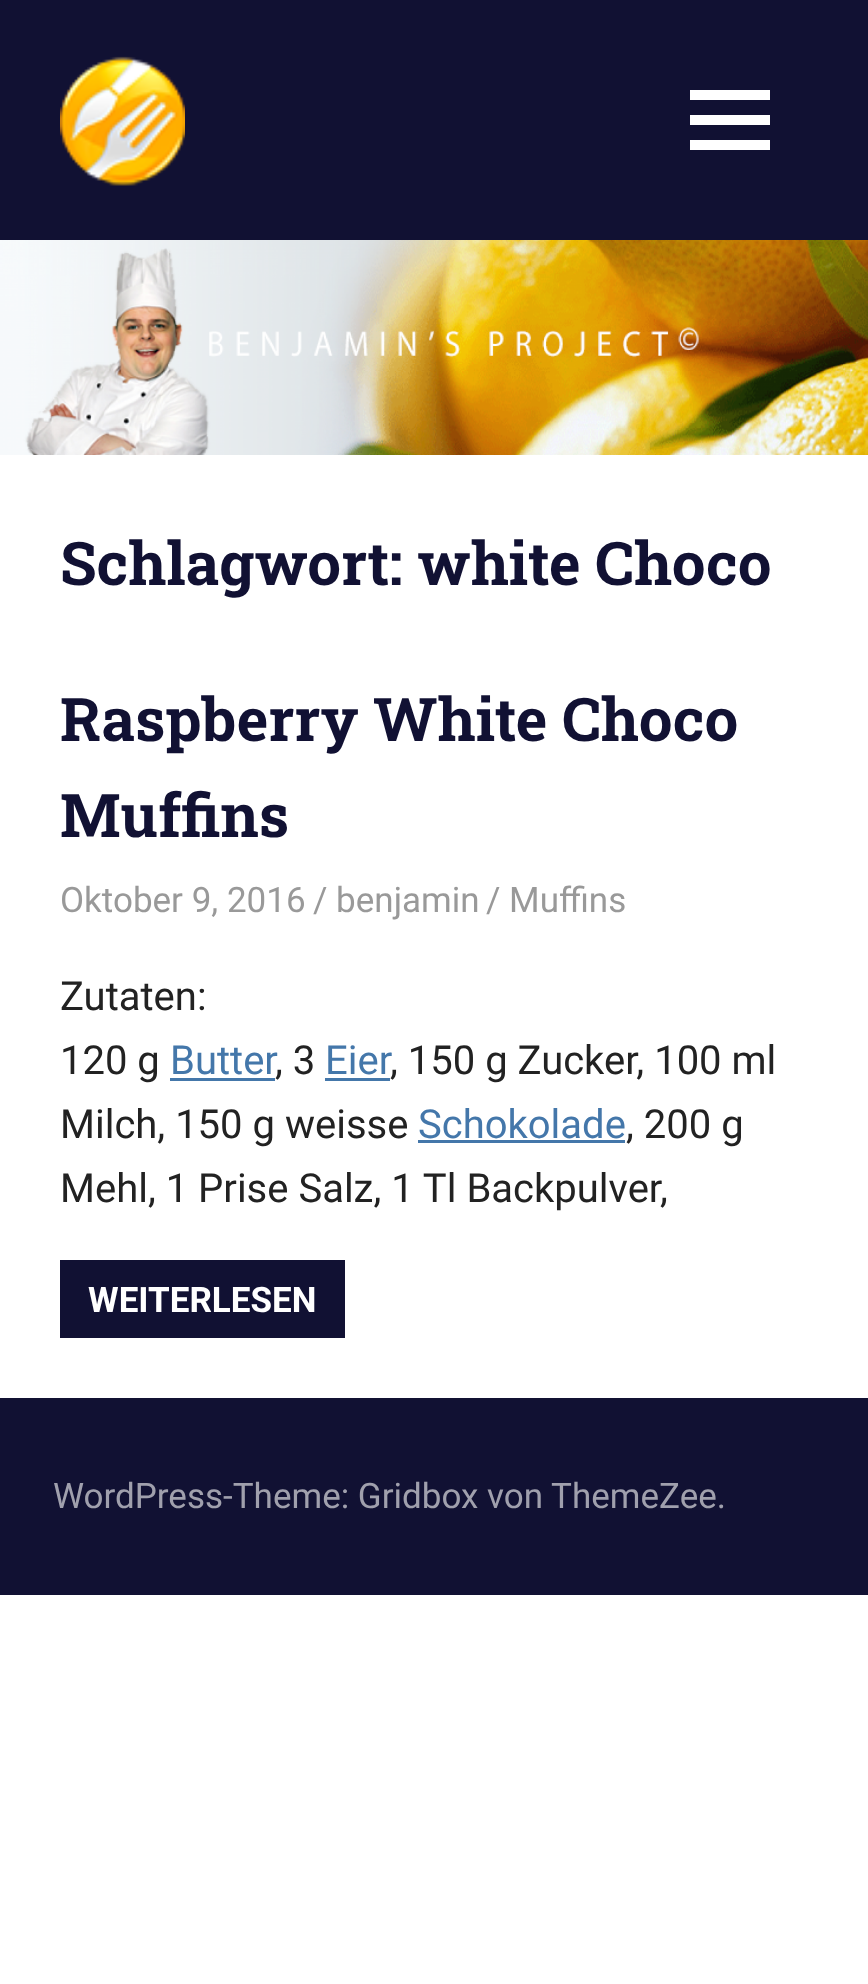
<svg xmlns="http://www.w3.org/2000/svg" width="868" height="1984">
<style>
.a{font:bold 60px Roboto Slab;fill:#113}
.b{font:35px Roboto;fill:#999}
.c{font:40px Roboto;fill:#222}
.d{font:40px Roboto;fill:#47a}
.e{font:bold 35px Roboto;fill:#fff}
.f{font:35px Roboto;fill:#a0a0ad}
</style>
<rect width="100%" height="100%" fill="#fff"/>
<path fill="#113" d="M0 0h868v240H0z"/>
<image href="1.png" x="60" y="56" width="125" height="130"/>
<image href="2.png" x="690" y="90" width="80" height="60"/>
<image href="3.png" x="0" y="240" width="868" height="215"/>
<path fill="#47a" d="M170 1078h105v3H170z"/>
<path fill="#47a" d="M325 1078h65v3H325z"/>
<path fill="#47a" d="M418 1140h207v3H418z"/>
<path fill="#113" d="M60 1260h285v78H60z"/>
<path fill="#113" d="M0 1398h868v197H0z"/>
<text class="a" x="60" y="585">Schlagwort: white Choco</text>
<text class="a" x="60" y="741">Raspberry White Choco</text>
<text class="a" x="60" y="837">Muffins</text>
<text class="b" x="60" y="912">Oktober 9, 2016</text>
<text class="b" x="313" y="912">/ benjamin</text>
<text class="b" x="486" y="912">/ Muffins</text>
<text class="c" x="60" y="1010">Zutaten:</text>
<text class="c" x="60" y="1074">120 g</text>
<text class="d" x="170" y="1074">Butter</text>
<text class="c" x="275" y="1074">, 3</text>
<text class="d" x="325" y="1074">Eier</text>
<text class="c" x="390" y="1074">, 150 g Zucker, 100 ml</text>
<text class="c" x="60" y="1138">Milch, 150 g weisse</text>
<text class="d" x="418" y="1138">Schokolade</text>
<text class="c" x="626" y="1138">, 200 g</text>
<text class="c" x="60" y="1202">Mehl, 1 Prise Salz, 1 Tl Backpulver,</text>
<text class="e" x="88" y="1312">WEITERLESEN</text>
<text class="f" x="53" y="1508">WordPress-Theme: Gridbox von ThemeZee.</text>
</svg>
